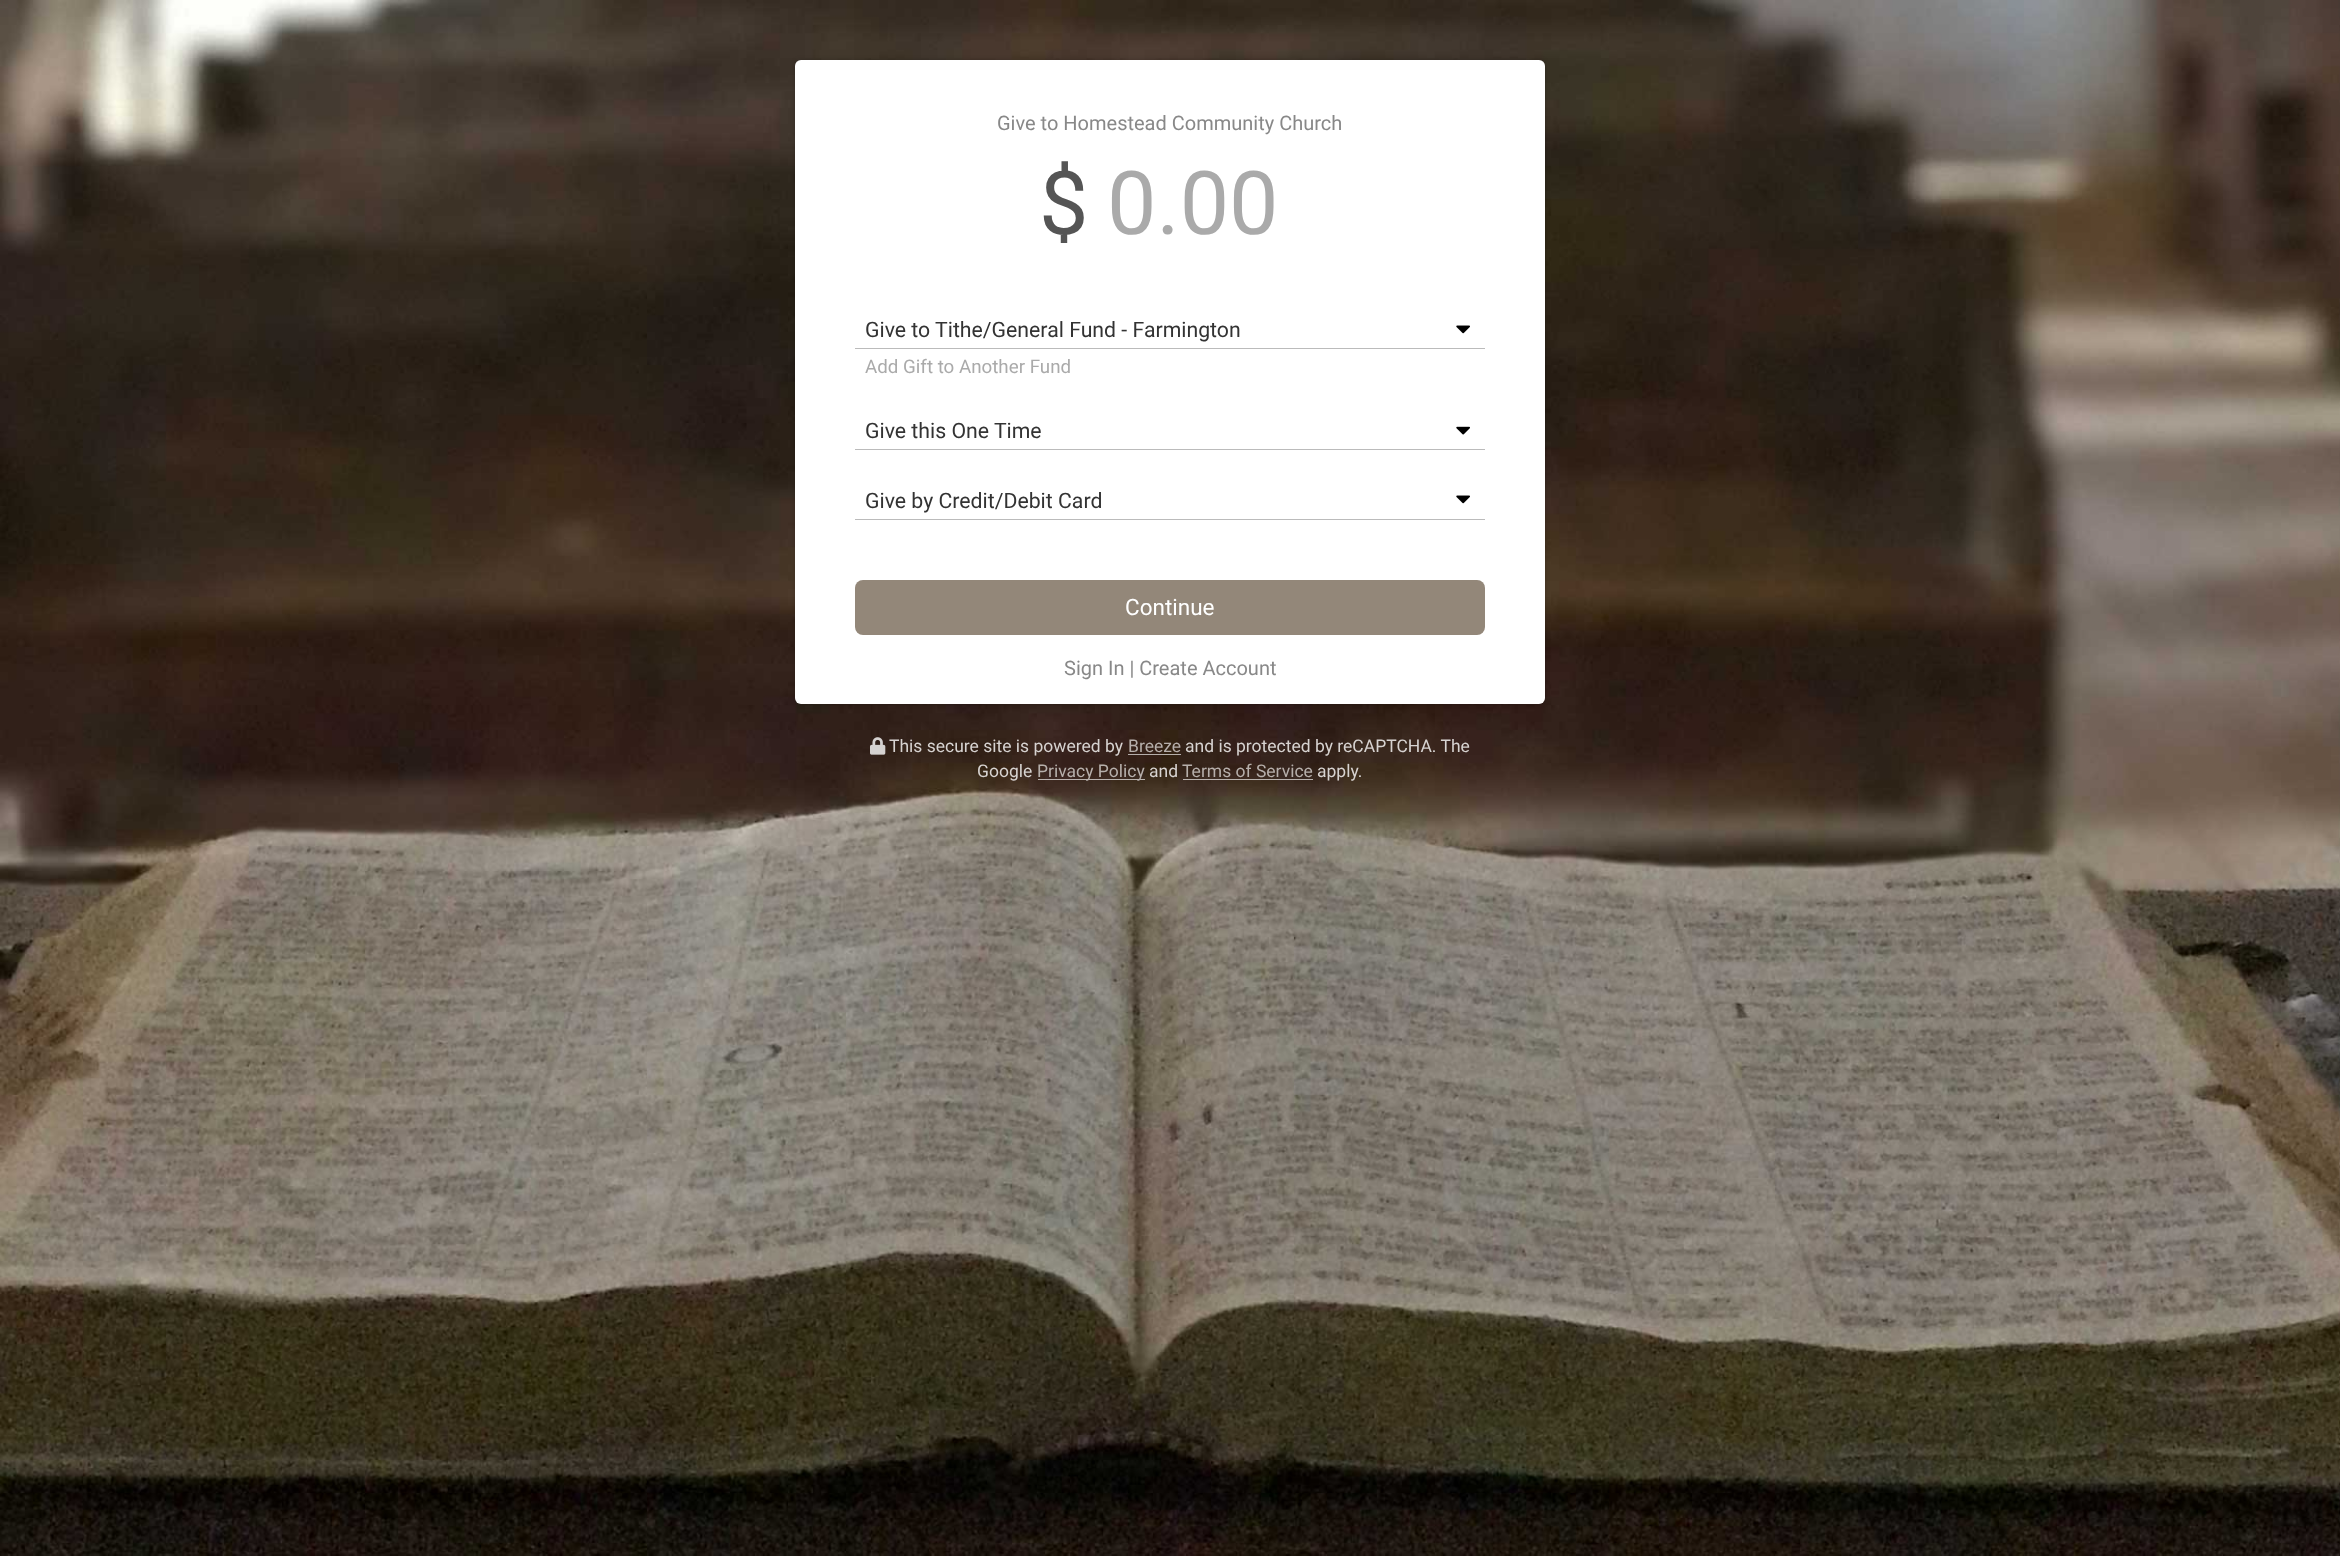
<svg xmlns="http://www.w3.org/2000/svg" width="2340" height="1556">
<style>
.a{font:20px Roboto;fill:#888}
.b{font:88px Roboto;fill:#555}
.c{font:88px Roboto;fill:#aaa}
.d{font:21.25px Roboto;fill:#333}
.e{font:18.75px Roboto;fill:#aaa}
.f{font:22.5px Roboto;fill:#fff}
.g{font:17.5px Roboto;fill:#d7d3d1}
.h{font:17.5px Roboto;fill:#b6afab}
</style>
<rect width="100%" height="100%" fill="#fff"/>
<image href="1.png" x="0" y="0" width="2340" height="1556"/>
<rect fill="#00000033" filter="blur(2.5px)" x="795" y="60" width="750" height="644" rx="6"/>
<rect fill="#fff" x="795" y="60" width="750" height="644" rx="6"/>
<image href="2.png" x="1456" y="325" width="14" height="9"/>
<path fill="#bbb" d="M855 348h630v1H855z"/>
<image href="3.png" x="1456" y="426" width="14" height="9"/>
<path fill="#bbb" d="M855 449h630v1H855z"/>
<image href="2.png" x="1456" y="495" width="14" height="9"/>
<path fill="#bbb" d="M855 519h630v1H855z"/>
<rect fill="#938779" x="855" y="580" width="630" height="55" rx="8"/>
<image href="4.png" x="870" y="737" width="16" height="18"/>
<path fill="#ffffffa3" d="M1128 754h53v1H1128z"/>
<path fill="#ffffffa3" d="M1038 779h107v1H1038z"/>
<path fill="#ffffffa3" d="M1183 779h130v1H1183z"/>
<text class="a" x="997" y="130">Give to Homestead Community Church</text>
<text class="b" x="1039" y="234">$</text>
<text class="c" x="1107" y="234">0.00</text>
<text class="d" x="865" y="337">Give to Tithe/General Fund - Farmington</text>
<text class="e" x="865" y="373">Add Gift to Another Fund</text>
<text class="d" x="865" y="438">Give this One Time</text>
<text class="d" x="865" y="508">Give by Credit/Debit Card</text>
<text class="f" x="1125" y="615">Continue</text>
<text class="a" x="1064" y="675">Sign In | Create Account</text>
<text class="g" x="889" y="752">This secure site is powered by</text>
<text class="h" x="1128" y="752">Breeze</text>
<text class="g" x="1185" y="752">and is protected by reCAPTCHA. The</text>
<text class="g" x="977" y="777">Google</text>
<text class="h" x="1037" y="777">Privacy Policy</text>
<text class="g" x="1149" y="777">and</text>
<text class="h" x="1182" y="777">Terms of Service</text>
<text class="g" x="1317" y="777">apply.</text>
</svg>
